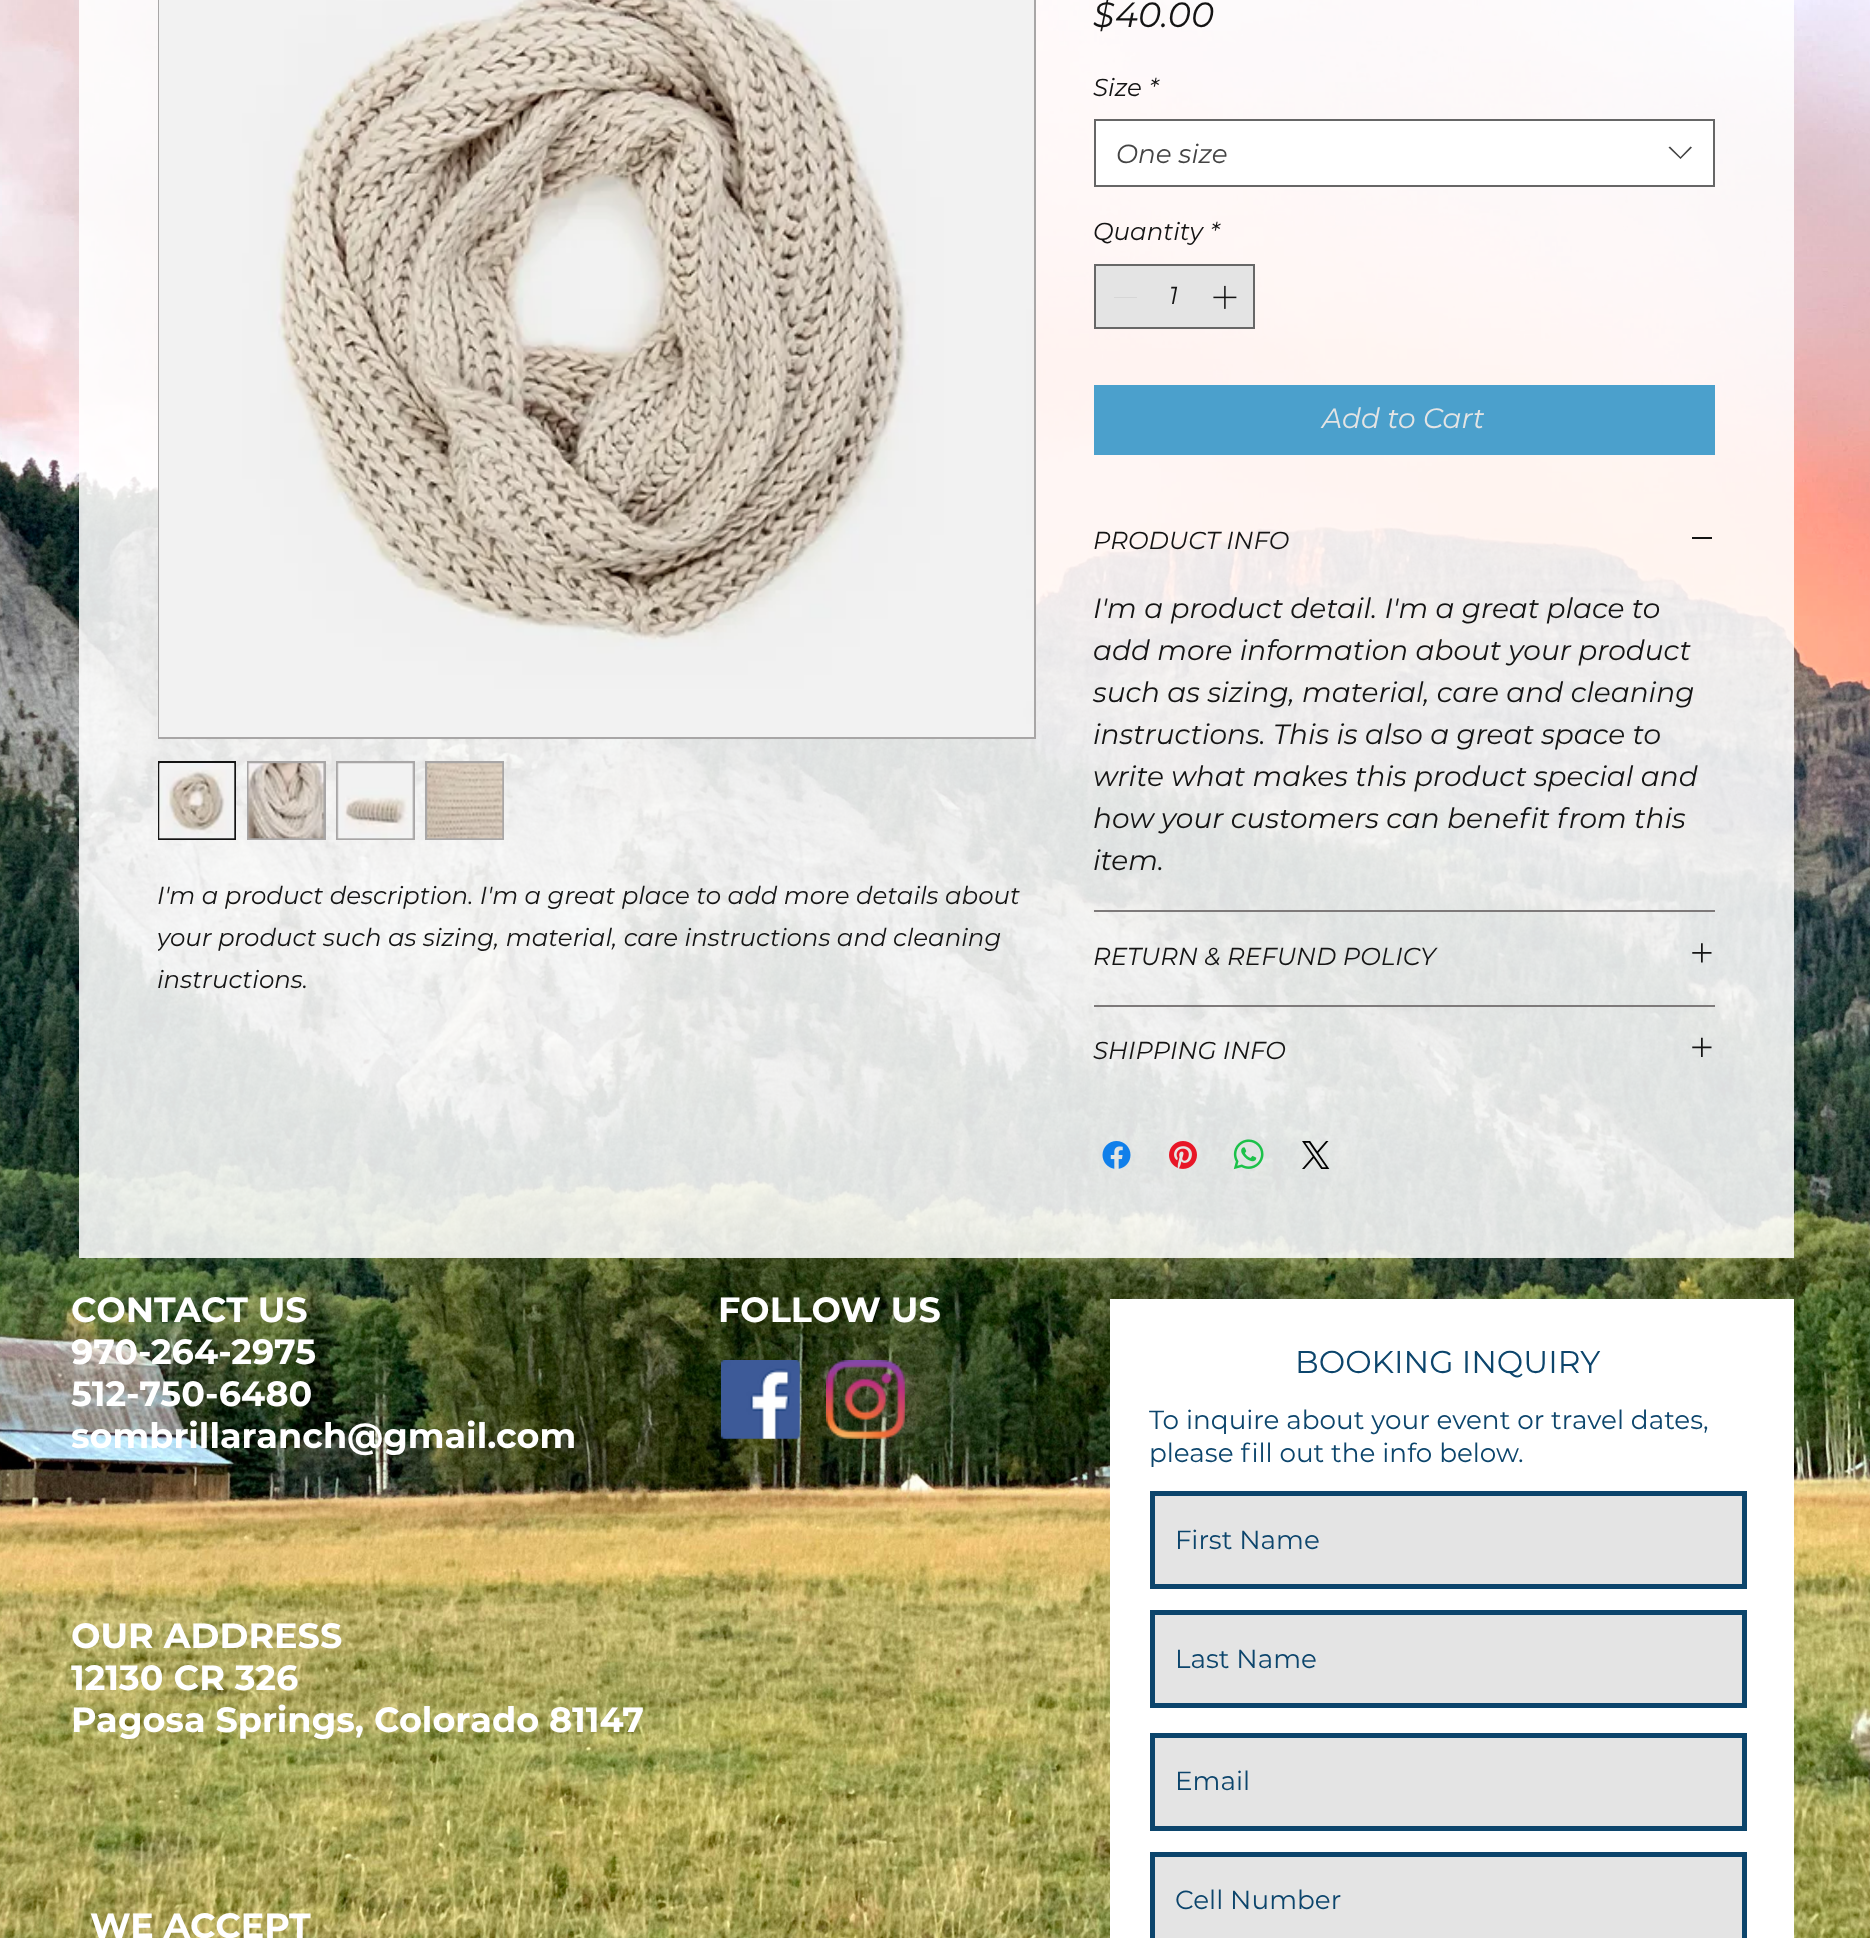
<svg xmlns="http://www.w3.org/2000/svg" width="1870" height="1938">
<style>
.a{font:italic 24.5px Montserrat;fill:#141414}
.b{font:italic 35px Montserrat;fill:#141414}
.c{font:italic 26.25px Montserrat;fill:#444}
.d{font:italic 28px Montserrat;fill:#e4e4e4}
.e{font:italic 28px Montserrat;fill:#141414}
.f{font:bold 35px Montserrat;fill:#fff}
.g{font:31.5px Montserrat;fill:#0c456c}
.h{font:26.25px Montserrat;fill:#0c456c}
</style>
<defs>
<clipPath id="clip1"><path d="M158 875h875v126H158z"/></clipPath>
</defs>
<rect width="100%" height="100%" fill="#fff"/>
<image href="1.png" x="0" y="0" width="1870" height="1938"/>
<path fill="#ffffffde" d="M79 0h1715v1258H79z"/>
<path fill="none" stroke="#a8a6a6" stroke-width="2" d="M159 -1h876v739H159z"/>
<image href="2.png" x="159" y="0" width="875" height="737"/>
<path fill="none" stroke="#141414" stroke-width="2" d="M159 762h76v77H159z"/>
<image href="3.png" x="159" y="763" width="76" height="76"/>
<path fill="#a8a6a6" d="M247 761h79v79H247z"/>
<image href="4.png" x="248" y="763" width="77" height="76"/>
<path fill="#a8a6a6" d="M336 761h79v79H336z"/>
<image href="5.png" x="337" y="763" width="77" height="76"/>
<path fill="#a8a6a6" d="M425 761h79v79H425z"/>
<image href="6.png" x="427" y="763" width="76" height="76"/>
<path fill="#fff" stroke="#666" stroke-width="2" d="M1095 120h619v66H1095z"/>
<path fill="#444" fill-rule="evenodd" d="M1690.5 146.5l1.5 1l-11.5 11.5l-12-11.5l1.5-1l10.5 10.5z"/>
<path fill="#e4e4e4" stroke="#676767" stroke-width="2" d="M1095 265h159v63H1095z"/>
<path fill="#d6d6d6" d="M1114 297h23v1H1114z"/>
<image href="7.png" x="1213" y="285" width="24" height="24"/>
<path fill="#4ba0cc" d="M1094 385h621v70H1094z"/>
<path fill="#7d7979" d="M1094 910h621v2H1094z"/>
<path fill="#141414" d="M1692 537h20v2H1692z"/>
<path fill="#7d7979" d="M1094 1005h621v2H1094z"/>
<image href="8.png" x="1692" y="943" width="20" height="20"/>
<image href="9.png" x="1692" y="1037" width="20" height="20"/>
<image href="10.png" x="1102" y="1141" width="29" height="28"/>
<image href="11.png" x="1169" y="1141" width="28" height="28"/>
<image href="12.png" x="1233" y="1139" width="31" height="31"/>
<image href="13.png" x="1302" y="1141" width="28" height="28"/>
<image href="14.png" x="721" y="1360" width="79" height="79"/>
<image href="15.png" x="826" y="1360" width="79" height="79"/>
<path fill="#fff" d="M1110 1299h684v639H1110z"/>
<path fill="#e4e4e4" stroke="#0c456c" stroke-width="5" d="M1152.5 1493.5h592v93H1152.5z"/>
<path fill="#e4e4e4" stroke="#0c456c" stroke-width="5" d="M1152.5 1612.5h592v93H1152.5z"/>
<path fill="#e4e4e4" stroke="#0c456c" stroke-width="5" d="M1152.5 1735.5h592v93H1152.5z"/>
<path fill="#e4e4e4" stroke="#0c456c" stroke-width="5" d="M1152.5 1854.5h592v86H1152.5z"/>
<text class="a" x="157" y="904">I'm a product description. I'm a great place to add more details about</text>
<g clip-path="url(#clip1)">
<text class="a" x="157" y="946">your product such as sizing, material, care instructions and cleaning</text>
</g>
<text class="a" x="157" y="988">instructions.</text>
<text class="b" x="1093" y="27">$40.00</text>
<text class="a" x="1093" y="96">Size</text>
<text class="a" x="1149" y="96">*</text>
<text class="c" x="1116" y="163">One size</text>
<text class="a" x="1093" y="240">Quantity</text>
<text class="a" x="1210" y="240">*</text>
<text class="a" x="1169" y="304">1</text>
<text class="d" x="1322" y="428">Add to Cart</text>
<text class="a" x="1093" y="549">PRODUCT INFO</text>
<text class="e" x="1093" y="618">I'm a product detail. I'm a great place to</text>
<text class="e" x="1093" y="660">add more information about your product</text>
<text class="e" x="1093" y="702">such as sizing, material, care and cleaning</text>
<text class="e" x="1093" y="744">instructions. This is also a great space to</text>
<text class="e" x="1093" y="786">write what makes this product special and</text>
<text class="e" x="1093" y="828">how your customers can benefit from this</text>
<text class="e" x="1093" y="870">item.</text>
<text class="a" x="1093" y="965">RETURN &amp; REFUND POLICY</text>
<text class="a" x="1093" y="1059">SHIPPING INFO</text>
<text class="f" x="71" y="1322">CONTACT US</text>
<text class="f" x="71" y="1364">970-264-2975</text>
<text class="f" x="71" y="1406">512-750-6480</text>
<text class="f" x="71" y="1448">sombrillaranch@gmail.com</text>
<text class="f" x="718" y="1322">FOLLOW US</text>
<text class="g" x="1295" y="1373">BOOKING INQUIRY</text>
<text class="h" x="1149" y="1429">To inquire about your event or travel dates,</text>
<text class="h" x="1149" y="1462">please fill out the info below.</text>
<text class="h" x="1175" y="1549">First Name</text>
<text class="h" x="1175" y="1668">Last Name</text>
<text class="h" x="1175" y="1790">Email</text>
<text class="h" x="1175" y="1909">Cell Number</text>
<text class="f" x="71" y="1648">OUR ADDRESS</text>
<text class="f" x="71" y="1690">12130 CR 326</text>
<text class="f" x="71" y="1732">Pagosa Springs, Colorado 81147</text>
<text class="f" x="90" y="1938">WE ACCEPT</text>
</svg>
